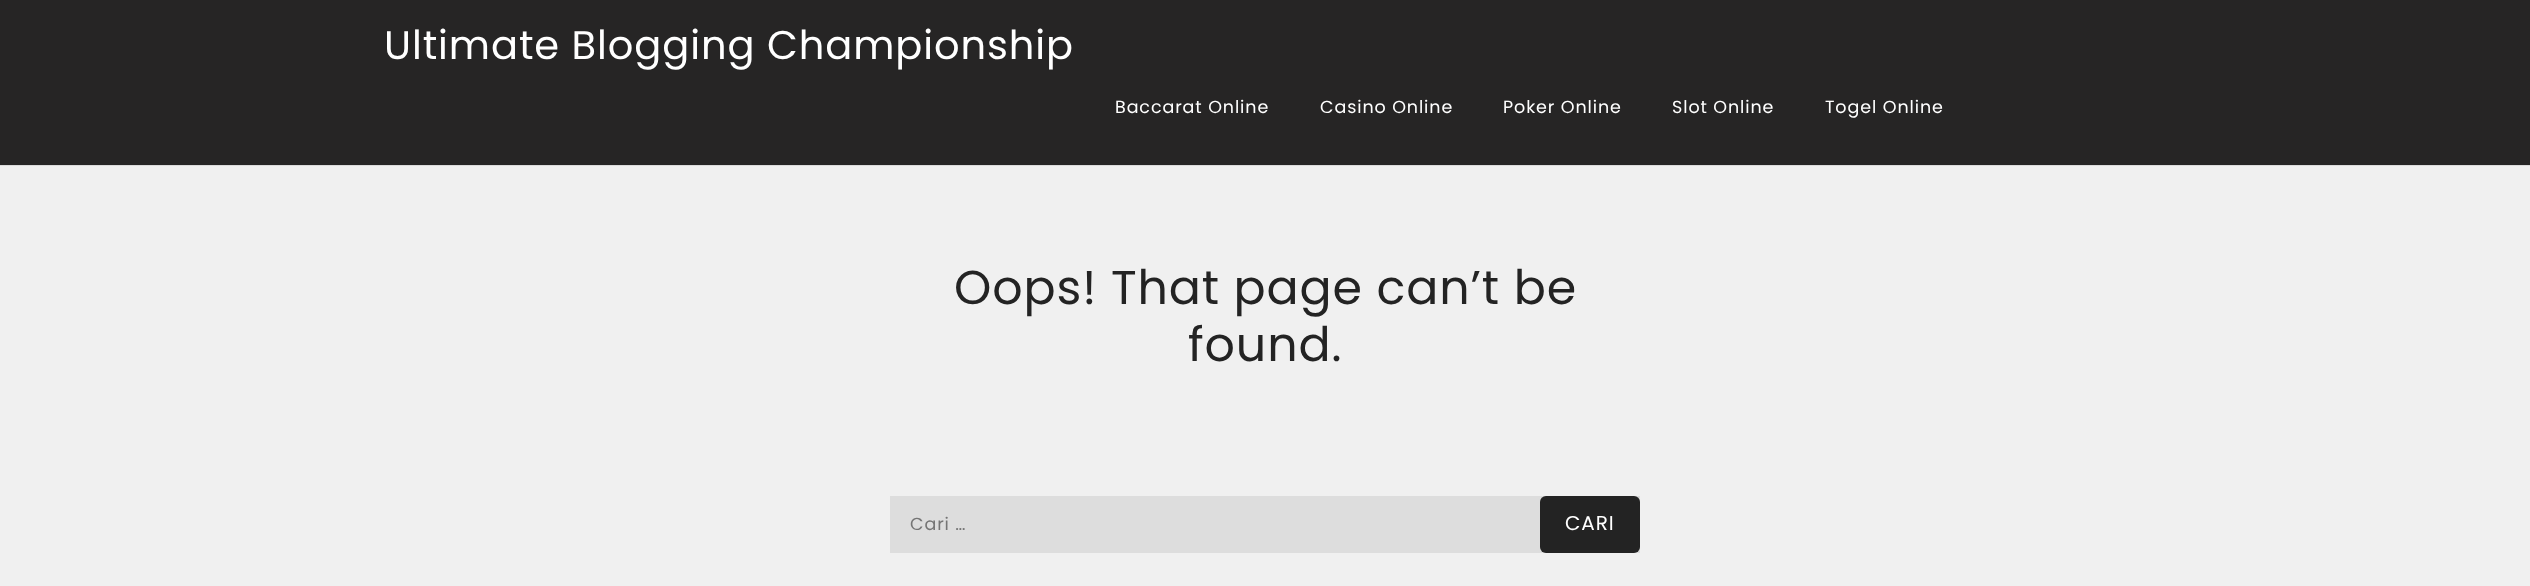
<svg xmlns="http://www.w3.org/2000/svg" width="2530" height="586">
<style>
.a{font:40px Poppins;letter-spacing:0.9px;fill:#fff}
.b{font:17.5px Poppins;letter-spacing:0.9px;fill:#fff}
.c{font:47.5px Poppins;letter-spacing:0.9px;fill:#232323}
.d{font:17.5px Poppins;letter-spacing:0.9px;fill:#757575}
.e{font:20px Poppins;letter-spacing:0.9px;fill:#fff}
</style>
<rect width="100%" height="100%" fill="#f0f0f0"/>
<path fill="#dbdbdb" d="M0 165h2530v1H0z"/>
<path fill="#262525" d="M0 0h2530v165H0z"/>
<path fill="#ddd" d="M890 496h750v57H890z"/>
<rect fill="#232323" x="1540" y="496" width="100" height="57" rx="6"/>
<text class="a" x="384" y="59">Ultimate Blogging Championship</text>
<text class="b" x="1115" y="113">Baccarat Online</text>
<text class="b" x="1320" y="113">Casino Online</text>
<text class="b" x="1503" y="113">Poker Online</text>
<text class="b" x="1672" y="113">Slot Online</text>
<text class="b" x="1825" y="113">Togel Online</text>
<text class="c" x="954" y="304">Oops! That page can’t be</text>
<text class="c" x="1188" y="361">found.</text>
<text class="d" x="910" y="530">Cari …</text>
<text class="e" x="1565" y="530">CARI</text>
</svg>
